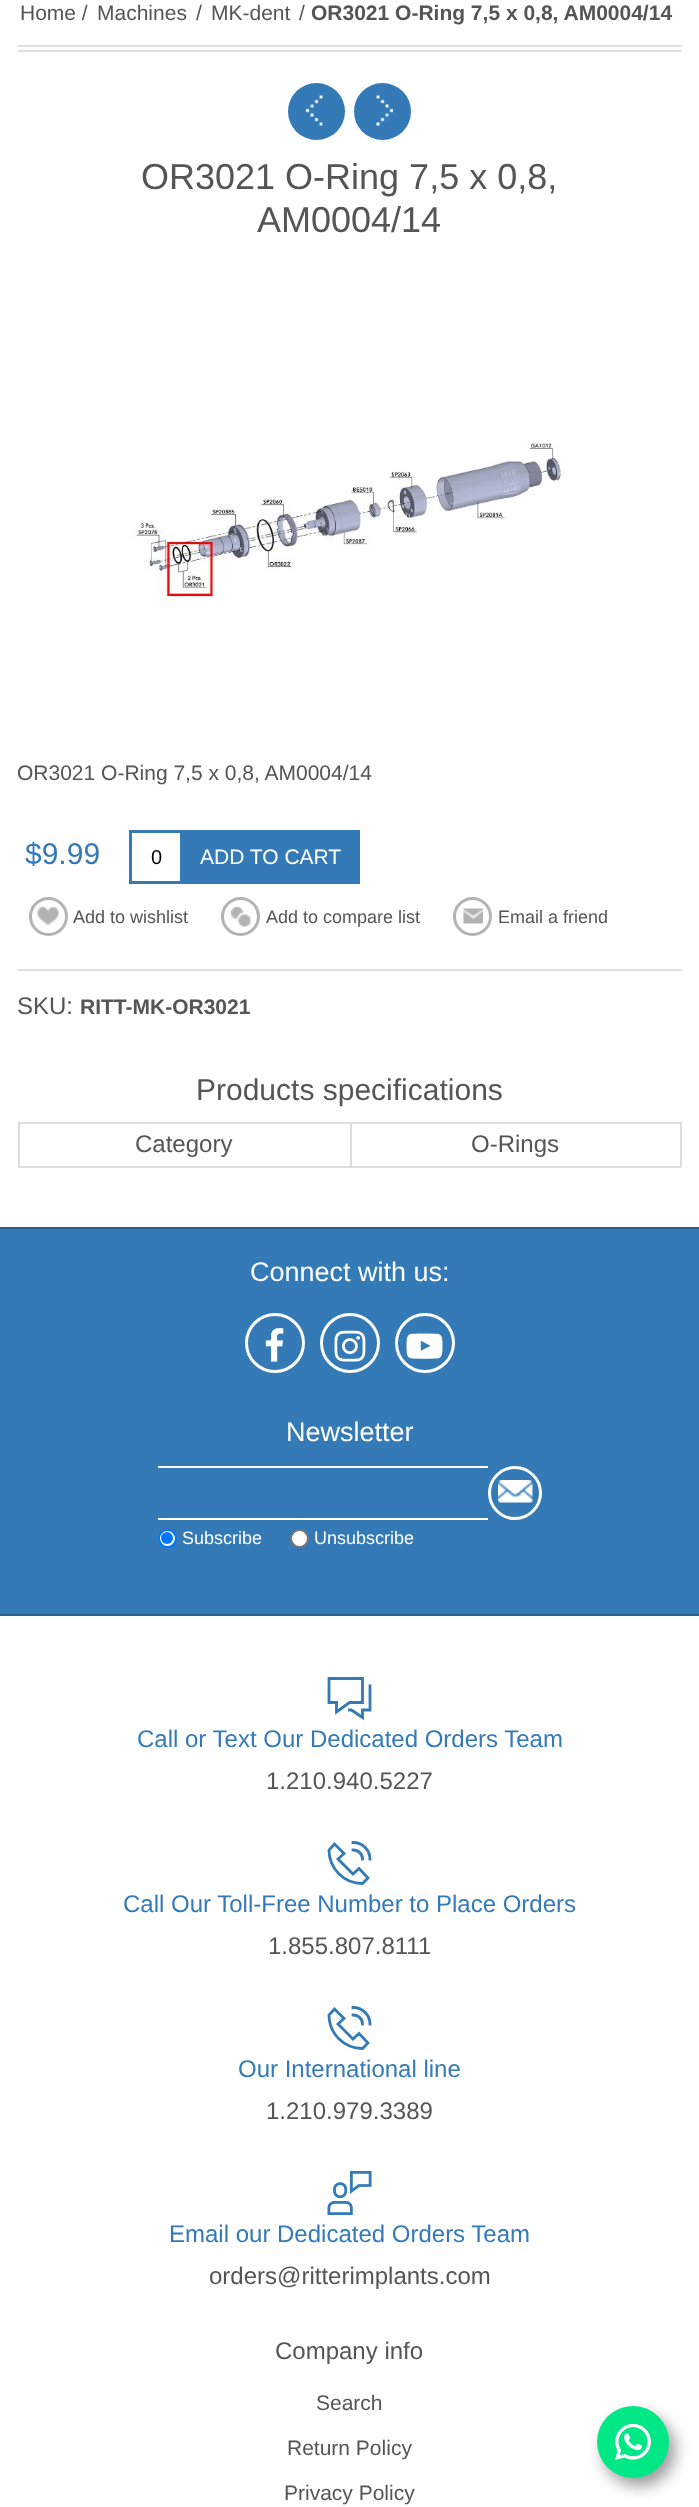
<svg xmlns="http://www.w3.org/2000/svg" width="699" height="2507">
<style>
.a{font:21px Liberation Sans;fill:#555}
.b{font:bold 21px Liberation Sans;fill:#555}
.c{font:36px Liberation Sans;fill:#555}
.d{font:30px Liberation Sans;fill:#337ab7}
.e{font:20px Liberation Sans;fill:#000}
.f{font:21px Liberation Sans;fill:#fff}
.g{font:18px Liberation Sans;fill:#555}
.h{font:24px Liberation Sans;fill:#555}
.i{font:30px Liberation Sans;fill:#555}
.j{font:27px Liberation Sans;fill:#fff}
.k{font:18px Liberation Sans;fill:#fff}
.l{font:24px Liberation Sans;fill:#337ab7}
</style>
<rect width="100%" height="100%" fill="#fff"/>
<path fill="#ddd" d="M18 50h663v2H18z"/>
<path fill="#ddd" d="M18 45h663v2H18z"/>
<circle fill="#337ab7" cx="316.5" cy="111.5" r="28.5"/>
<image href="1.png" x="306" y="95" width="17" height="31"/>
<circle fill="#337ab7" cx="382.5" cy="111.5" r="28.5"/>
<image href="2.png" x="376" y="95" width="17" height="31"/>
<image href="3.png" x="134" y="443" width="431" height="156"/>
<path fill="none" stroke="#337ab7" stroke-width="3" d="M130.5 831.5h51v51H130.5z"/>
<path fill="#337ab7" d="M183 830h177v54H183z"/>
<path fill="#ddd" d="M18 969h663v2H18z"/>
<image href="4.png" x="37" y="907" width="22" height="18"/>
<circle fill="none" stroke="#b3b3b3" stroke-width="3" cx="48.5" cy="916.5" r="18"/>
<image href="5.png" x="231" y="907" width="20" height="20"/>
<circle fill="none" stroke="#b3b3b3" stroke-width="3" cx="240.5" cy="916.5" r="18"/>
<image href="6.png" x="463" y="908" width="20" height="16"/>
<circle fill="none" stroke="#b3b3b3" stroke-width="3" cx="472.5" cy="916.5" r="18"/>
<path fill="#ddd" d="M350 1122h331v2H350z"/>
<path fill="#ddd" d="M680 1122h2v45H680z"/>
<path fill="#ddd" d="M350 1166h331v2H350z"/>
<path fill="#ddd" d="M350 1122h2v45H350z"/>
<path fill="#ddd" d="M18 1122h333v2H18z"/>
<path fill="#ddd" d="M18 1166h333v2H18z"/>
<path fill="#ddd" d="M18 1122h2v45H18z"/>
<path fill="#337ab7" d="M0 1229h699v385H0z"/>
<path fill="#296292" d="M0 1227h699v2H0z"/>
<circle fill="none" stroke="#fff" stroke-width="3" cx="275" cy="1343" r="28.5"/>
<image href="7.png" x="265" y="1328" width="19" height="34"/>
<circle fill="none" stroke="#fff" stroke-width="3" cx="350" cy="1343" r="28.5"/>
<image href="8.png" x="334" y="1330" width="32" height="32"/>
<circle fill="none" stroke="#fff" stroke-width="3" cx="425" cy="1343" r="28.5"/>
<image href="9.png" x="406" y="1333" width="37" height="26"/>
<path fill="#fff" d="M158 1466h330v2H158z"/>
<path fill="#fff" d="M158 1518h330v2H158z"/>
<image href="10.png" x="498" y="1480" width="35" height="23"/>
<circle fill="none" stroke="#fff" stroke-width="3" cx="515" cy="1493" r="25.5"/>
<circle fill="#fff" stroke="#0075ff" stroke-width="2" cx="167.5" cy="1538.5" r="8.5"/>
<circle fill="#0075ff" cx="167" cy="1538" r="6"/>
<circle fill="#fff" stroke="#767676" stroke-width="2" cx="299.5" cy="1538.5" r="8.5"/>
<path fill="#296292" d="M0 1614h699v2H0z"/>
<path fill="none" stroke="#337ab7" stroke-width="2.8" stroke-linecap="square" d="M370 1686v24h-7.5v7.5l-11-7.5h-2m13-31.5h-33.5v24h7.5v9.5l13-9.5h13z"/>
<path fill="none" stroke="#337ab7" stroke-width="2.8" stroke-linecap="square" d="M359 1868.5l-6 5.5l-15-15l6-5.5l-9.5-9.5l-5.5 6c0 18.5 15 33.5 33.5 33.5l5.5-5.5zm-6-26c9.5 0 17 7.5 17 16.5m-17-9c5.5 0 9.5 4 9.5 9"/>
<path fill="none" stroke="#337ab7" stroke-width="2.8" stroke-linecap="square" d="M359 2033.5l-6 5.5l-15-15l6-5.5l-9.5-9.5l-5.5 6c0 18.5 15 33.5 33.5 33.5l5.5-5.5zm-6-26c9.5 0 17 7.5 17 16.5m-17-9c5.5 0 9.5 4 9.5 9"/>
<image href="11.png" x="327" y="2171" width="45" height="44"/>
<rect fill="#00000066" filter="blur(7.5px)" x="603" y="2414" width="72" height="72" rx="36"/>
<circle fill="#00e785" cx="633" cy="2442" r="36"/>
<image href="12.png" x="615" y="2424" width="36" height="36"/>
<text class="a" x="20" y="20">Home /</text>
<text class="a" x="97" y="20">Machines</text>
<text class="a" x="196" y="20">/</text>
<text class="a" x="211" y="20">MK-dent</text>
<text class="a" x="299" y="20">/</text>
<text class="b" x="311" y="20">OR3021 O-Ring 7,5 x 0,8, AM0004/14</text>
<text class="c" x="141" y="189">OR3021 O-Ring 7,5 x 0,8,</text>
<text class="c" x="257" y="232">AM0004/14</text>
<text class="a" x="17" y="780">OR3021 O-Ring 7,5 x 0,8, AM0004/14</text>
<text class="d" x="25" y="864">$9.99</text>
<text class="e" x="151" y="864">0</text>
<text class="f" x="200" y="864">ADD TO CART</text>
<text class="g" x="73" y="923">Add to wishlist</text>
<text class="g" x="266" y="923">Add to compare list</text>
<text class="g" x="498" y="923">Email a friend</text>
<text class="h" x="17" y="1014">SKU:</text>
<text class="b" x="80" y="1014">RITT-MK-OR3021</text>
<text class="i" x="196" y="1100">Products specifications</text>
<text class="h" x="135" y="1152">Category</text>
<text class="h" x="471" y="1152">O-Rings</text>
<text class="j" x="250" y="1281">Connect with us:</text>
<text class="j" x="286" y="1441">Newsletter</text>
<text class="k" x="182" y="1544">Subscribe</text>
<text class="k" x="314" y="1544">Unsubscribe</text>
<text class="l" x="137" y="1747">Call or Text Our Dedicated Orders Team</text>
<text class="h" x="266" y="1789">1.210.940.5227</text>
<text class="l" x="123" y="1912">Call Our Toll-Free Number to Place Orders</text>
<text class="h" x="268" y="1954">1.855.807.8111</text>
<text class="l" x="238" y="2077">Our International line</text>
<text class="h" x="266" y="2119">1.210.979.3389</text>
<text class="l" x="169" y="2242">Email our Dedicated Orders Team</text>
<text class="h" x="209" y="2284">orders@ritterimplants.com</text>
<text class="h" x="275" y="2359">Company info</text>
<text class="a" x="316" y="2410">Search</text>
<text class="a" x="287" y="2455">Return Policy</text>
<text class="a" x="284" y="2500">Privacy Policy</text>
</svg>
